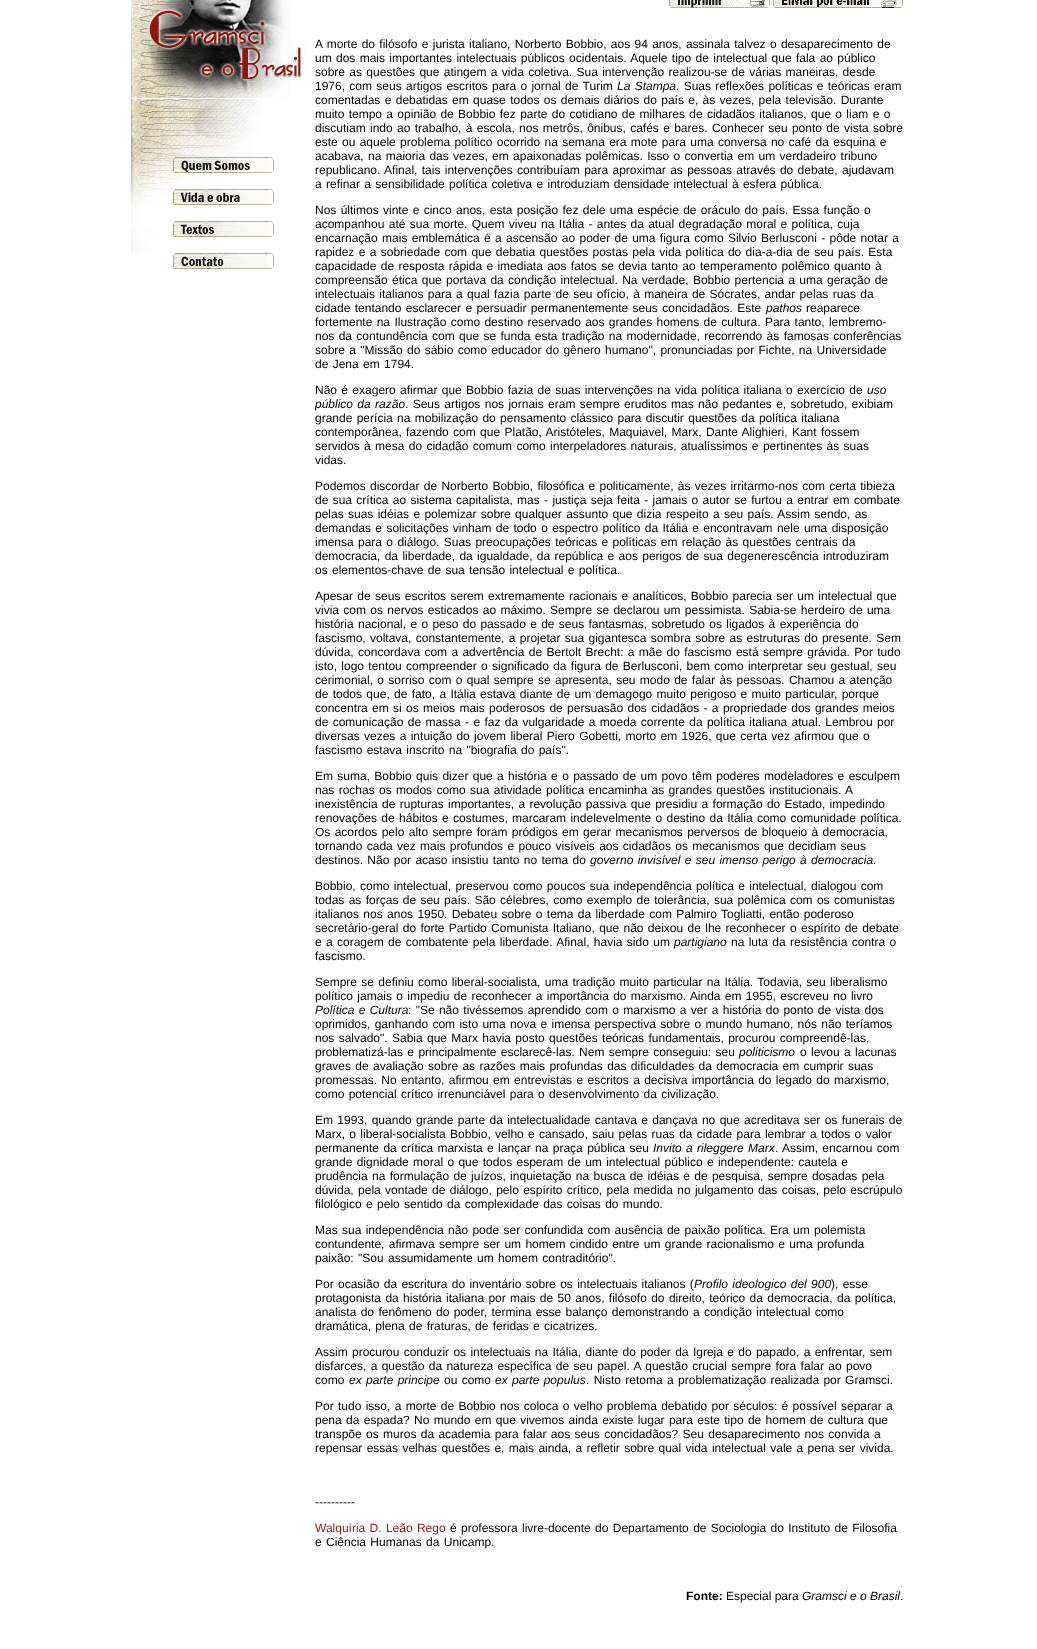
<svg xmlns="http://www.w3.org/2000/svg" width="1037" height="1649">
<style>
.a{font:12px Liberation Sans;fill:#000}
.b{font:italic 12px Liberation Sans;fill:#000}
.c{font:12px Liberation Sans;fill:#93150c}
.d{font:bold 12px Liberation Sans;fill:#000}
</style>
<rect width="100%" height="100%" fill="#fff"/>
<image href="1.png" x="131" y="0" width="176" height="98"/>
<image href="2.png" x="131" y="99" width="132" height="154"/>
<image href="3.png" x="173" y="157" width="101" height="16"/>
<image href="4.png" x="173" y="189" width="101" height="16"/>
<image href="5.png" x="173" y="221" width="101" height="16"/>
<image href="6.png" x="173" y="253" width="101" height="16"/>
<image href="7.png" x="669" y="0" width="101" height="8"/>
<image href="8.png" x="773" y="0" width="130" height="8"/>
<text class="a" x="315" y="48" word-spacing="1">A morte do filósofo e jurista italiano, Norberto Bobbio, aos 94 anos, assinala talvez o desaparecimento de</text>
<text class="a" x="315" y="62" word-spacing="1">um dos mais importantes intelectuais públicos ocidentais. Aquele tipo de intelectual que fala ao público</text>
<text class="a" x="315" y="76" word-spacing="1">sobre as questões que atingem a vida coletiva. Sua intervenção realizou-se de várias maneiras, desde</text>
<text class="a" x="315" y="90" word-spacing="1">1976, com seus artigos escritos para o jornal de Turim</text>
<text class="b" x="617" y="90" word-spacing="1">La Stampa</text>
<text class="a" x="676" y="90" word-spacing="1">. Suas reflexões políticas e teóricas eram</text>
<text class="a" x="315" y="104" word-spacing="1">comentadas e debatidas em quase todos os demais diários do país e, às vezes, pela televisão. Durante</text>
<text class="a" x="315" y="118" word-spacing="1">muito tempo a opinião de Bobbio fez parte do cotidiano de milhares de cidadãos italianos, que o liam e o</text>
<text class="a" x="315" y="132" word-spacing="1">discutiam indo ao trabalho, à escola, nos metrôs, ônibus, cafés e bares. Conhecer seu ponto de vista sobre</text>
<text class="a" x="315" y="146" word-spacing="1">este ou aquele problema político ocorrido na semana era mote para uma conversa no café da esquina e</text>
<text class="a" x="315" y="160" word-spacing="1">acabava, na maioria das vezes, em apaixonadas polêmicas. Isso o convertia em um verdadeiro tribuno</text>
<text class="a" x="315" y="174" word-spacing="1">republicano. Afinal, tais intervenções contribuíam para aproximar as pessoas através do debate, ajudavam</text>
<text class="a" x="315" y="188" word-spacing="1">a refinar a sensibilidade política coletiva e introduziam densidade intelectual à esfera pública.</text>
<text class="a" x="315" y="214" word-spacing="1">Nos últimos vinte e cinco anos, esta posição fez dele uma espécie de oráculo do país. Essa função o</text>
<text class="a" x="315" y="228" word-spacing="1">acompanhou até sua morte. Quem viveu na Itália - antes da atual degradação moral e política, cuja</text>
<text class="a" x="315" y="242" word-spacing="1">encarnação mais emblemática é a ascensão ao poder de uma figura como Silvio Berlusconi - pôde notar a</text>
<text class="a" x="315" y="256" word-spacing="1">rapidez e a sobriedade com que debatia questões postas pela vida política do dia-a-dia de seu país. Esta</text>
<text class="a" x="315" y="270" word-spacing="1">capacidade de resposta rápida e imediata aos fatos se devia tanto ao temperamento polêmico quanto à</text>
<text class="a" x="315" y="284" word-spacing="1">compreensão ética que portava da condição intelectual. Na verdade, Bobbio pertencia a uma geração de</text>
<text class="a" x="315" y="298" word-spacing="1">intelectuais italianos para a qual fazia parte de seu ofício, à maneira de Sócrates, andar pelas ruas da</text>
<text class="a" x="315" y="312" word-spacing="1">cidade tentando esclarecer e persuadir permanentemente seus concidadãos. Este</text>
<text class="b" x="766" y="312">pathos</text>
<text class="a" x="806" y="312">reaparece</text>
<text class="a" x="315" y="326" word-spacing="1">fortemente na Ilustração como destino reservado aos grandes homens de cultura. Para tanto, lembremo-</text>
<text class="a" x="315" y="340" word-spacing="1">nos da contundência com que se funda esta tradição na modernidade, recorrendo às famosas conferências</text>
<text class="a" x="315" y="354" word-spacing="1">sobre a "Missão do sábio como educador do gênero humano", pronunciadas por Fichte, na Universidade</text>
<text class="a" x="315" y="368" word-spacing="1">de Jena em 1794.</text>
<text class="a" x="315" y="394" word-spacing="1">Não é exagero afirmar que Bobbio fazia de suas intervenções na vida política italiana o exercício de</text>
<text class="b" x="867" y="394">uso</text>
<text class="b" x="315" y="408" word-spacing="1">público da razão</text>
<text class="a" x="405" y="408" word-spacing="1">. Seus artigos nos jornais eram sempre eruditos mas não pedantes e, sobretudo, exibiam</text>
<text class="a" x="315" y="422" word-spacing="1">grande perícia na mobilização do pensamento clássico para discutir questões da política italiana</text>
<text class="a" x="315" y="436" word-spacing="1">contemporânea, fazendo com que Platão, Aristóteles, Maquiavel, Marx, Dante Alighieri, Kant fossem</text>
<text class="a" x="315" y="450" word-spacing="1">servidos à mesa do cidadão comum como interpeladores naturais, atualíssimos e pertinentes às suas</text>
<text class="a" x="315" y="464">vidas.</text>
<text class="a" x="315" y="490" word-spacing="1">Podemos discordar de Norberto Bobbio, filosófica e politicamente, às vezes irritarmo-nos com certa tibieza</text>
<text class="a" x="315" y="504" word-spacing="1">de sua crítica ao sistema capitalista, mas - justiça seja feita - jamais o autor se furtou a entrar em combate</text>
<text class="a" x="315" y="518" word-spacing="1">pelas suas idéias e polemizar sobre qualquer assunto que dizia respeito a seu país. Assim sendo, as</text>
<text class="a" x="315" y="532" word-spacing="1">demandas e solicitações vinham de todo o espectro político da Itália e encontravam nele uma disposição</text>
<text class="a" x="315" y="546" word-spacing="1">imensa para o diálogo. Suas preocupações teóricas e políticas em relação às questões centrais da</text>
<text class="a" x="315" y="560" word-spacing="1">democracia, da liberdade, da igualdade, da república e aos perigos de sua degenerescência introduziram</text>
<text class="a" x="315" y="574" word-spacing="1">os elementos-chave de sua tensão intelectual e política.</text>
<text class="a" x="315" y="600" word-spacing="1">Apesar de seus escritos serem extremamente racionais e analíticos, Bobbio parecia ser um intelectual que</text>
<text class="a" x="315" y="614" word-spacing="1">vivia com os nervos esticados ao máximo. Sempre se declarou um pessimista. Sabia-se herdeiro de uma</text>
<text class="a" x="315" y="628" word-spacing="1">história nacional, e o peso do passado e de seus fantasmas, sobretudo os ligados à experiência do</text>
<text class="a" x="315" y="642" word-spacing="1">fascismo, voltava, constantemente, a projetar sua gigantesca sombra sobre as estruturas do presente. Sem</text>
<text class="a" x="315" y="656" word-spacing="1">dúvida, concordava com a advertência de Bertolt Brecht: a mãe do fascismo está sempre grávida. Por tudo</text>
<text class="a" x="315" y="670" word-spacing="1">isto, logo tentou compreender o significado da figura de Berlusconi, bem como interpretar seu gestual, seu</text>
<text class="a" x="315" y="684" word-spacing="1">cerimonial, o sorriso com o qual sempre se apresenta, seu modo de falar às pessoas. Chamou a atenção</text>
<text class="a" x="315" y="698" word-spacing="1">de todos que, de fato, a Itália estava diante de um demagogo muito perigoso e muito particular, porque</text>
<text class="a" x="315" y="712" word-spacing="1">concentra em si os meios mais poderosos de persuasão dos cidadãos - a propriedade dos grandes meios</text>
<text class="a" x="315" y="726" word-spacing="1">de comunicação de massa - e faz da vulgaridade a moeda corrente da política italiana atual. Lembrou por</text>
<text class="a" x="315" y="740" word-spacing="1">diversas vezes a intuição do jovem liberal Piero Gobetti, morto em 1926, que certa vez afirmou que o</text>
<text class="a" x="315" y="754" word-spacing="1">fascismo estava inscrito na "biografia do país".</text>
<text class="a" x="315" y="780" word-spacing="1">Em suma, Bobbio quis dizer que a história e o passado de um povo têm poderes modeladores e esculpem</text>
<text class="a" x="315" y="794" word-spacing="1">nas rochas os modos como sua atividade política encaminha as grandes questões institucionais. A</text>
<text class="a" x="315" y="808" word-spacing="1">inexistência de rupturas importantes, a revolução passiva que presidiu a formação do Estado, impedindo</text>
<text class="a" x="315" y="822" word-spacing="1">renovações de hábitos e costumes, marcaram indelevelmente o destino da Itália como comunidade política.</text>
<text class="a" x="315" y="836" word-spacing="1">Os acordos pelo alto sempre foram pródigos em gerar mecanismos perversos de bloqueio à democracia,</text>
<text class="a" x="315" y="850" word-spacing="1">tornando cada vez mais profundos e pouco visíveis aos cidadãos os mecanismos que decidiam seus</text>
<text class="a" x="315" y="864" word-spacing="1">destinos. Não por acaso insistiu tanto no tema do</text>
<text class="b" x="590" y="864" word-spacing="1">governo invisível e seu imenso perigo à democracia</text>
<text class="a" x="873" y="864">.</text>
<text class="a" x="315" y="890" word-spacing="1">Bobbio, como intelectual, preservou como poucos sua independência política e intelectual, dialogou com</text>
<text class="a" x="315" y="904" word-spacing="1">todas as forças de seu país. São célebres, como exemplo de tolerância, sua polêmica com os comunistas</text>
<text class="a" x="315" y="918" word-spacing="1">italianos nos anos 1950. Debateu sobre o tema da liberdade com Palmiro Togliatti, então poderoso</text>
<text class="a" x="315" y="932" word-spacing="1">secretário-geral do forte Partido Comunista Italiano, que não deixou de lhe reconhecer o espírito de debate</text>
<text class="a" x="315" y="946" word-spacing="1">e a coragem de combatente pela liberdade. Afinal, havia sido um</text>
<text class="b" x="674" y="946">partigiano</text>
<text class="a" x="731" y="946" word-spacing="1">na luta da resistência contra o</text>
<text class="a" x="315" y="960">fascismo.</text>
<text class="a" x="315" y="986" word-spacing="1">Sempre se definiu como liberal-socialista, uma tradição muito particular na Itália. Todavia, seu liberalismo</text>
<text class="a" x="315" y="1000" word-spacing="1">político jamais o impediu de reconhecer a importância do marxismo. Ainda em 1955, escreveu no livro</text>
<text class="b" x="315" y="1014" word-spacing="1">Política e Cultura</text>
<text class="a" x="408" y="1014" word-spacing="1">: "Se não tivéssemos aprendido com o marxismo a ver a história do ponto de vista dos</text>
<text class="a" x="315" y="1028" word-spacing="1">oprimidos, ganhando com isto uma nova e imensa perspectiva sobre o mundo humano, nós não teríamos</text>
<text class="a" x="315" y="1042" word-spacing="1">nos salvado". Sabia que Marx havia posto questões teóricas fundamentais, procurou compreendê-las,</text>
<text class="a" x="315" y="1056" word-spacing="1">problematizá-las e principalmente esclarecê-las. Nem sempre conseguiu: seu</text>
<text class="b" x="739" y="1056">politicismo</text>
<text class="a" x="800" y="1056" word-spacing="1">o levou a lacunas</text>
<text class="a" x="315" y="1070" word-spacing="1">graves de avaliação sobre as razões mais profundas das dificuldades da democracia em cumprir suas</text>
<text class="a" x="315" y="1084" word-spacing="1">promessas. No entanto, afirmou em entrevistas e escritos a decisiva importância do legado do marxismo,</text>
<text class="a" x="315" y="1098" word-spacing="1">como potencial crítico irrenunciável para o desenvolvimento da civilização.</text>
<text class="a" x="315" y="1124" word-spacing="1">Em 1993, quando grande parte da intelectualidade cantava e dançava no que acreditava ser os funerais de</text>
<text class="a" x="315" y="1138" word-spacing="1">Marx, o liberal-socialista Bobbio, velho e cansado, saiu pelas ruas da cidade para lembrar a todos o valor</text>
<text class="a" x="315" y="1152" word-spacing="1">permanente da crítica marxista e lançar na praça pública seu</text>
<text class="b" x="653" y="1152" word-spacing="1">Invito a rileggere Marx</text>
<text class="a" x="775" y="1152" word-spacing="1">. Assim, encarnou com</text>
<text class="a" x="315" y="1166" word-spacing="1">grande dignidade moral o que todos esperam de um intelectual público e independente: cautela e</text>
<text class="a" x="315" y="1180" word-spacing="1">prudência na formulação de juízos, inquietação na busca de idéias e de pesquisa, sempre dosadas pela</text>
<text class="a" x="315" y="1194" word-spacing="1">dúvida, pela vontade de diálogo, pelo espírito crítico, pela medida no julgamento das coisas, pelo escrúpulo</text>
<text class="a" x="315" y="1208" word-spacing="1">filológico e pelo sentido da complexidade das coisas do mundo.</text>
<text class="a" x="315" y="1234" word-spacing="1">Mas sua independência não pode ser confundida com ausência de paixão política. Era um polemista</text>
<text class="a" x="315" y="1248" word-spacing="1">contundente, afirmava sempre ser um homem cindido entre um grande racionalismo e uma profunda</text>
<text class="a" x="315" y="1262" word-spacing="1">paixão: "Sou assumidamente um homem contraditório".</text>
<text class="a" x="315" y="1288" word-spacing="1">Por ocasião da escritura do inventário sobre os intelectuais italianos (</text>
<text class="b" x="694" y="1288" word-spacing="1">Profilo ideologico del 900</text>
<text class="a" x="831" y="1288" word-spacing="1">), esse</text>
<text class="a" x="315" y="1302" word-spacing="1">protagonista da história italiana por mais de 50 anos, filósofo do direito, teórico da democracia, da política,</text>
<text class="a" x="315" y="1316" word-spacing="1">analista do fenômeno do poder, termina esse balanço demonstrando a condição intelectual como</text>
<text class="a" x="315" y="1330" word-spacing="1">dramática, plena de fraturas, de feridas e cicatrizes.</text>
<text class="a" x="315" y="1356" word-spacing="1">Assim procurou conduzir os intelectuais na Itália, diante do poder da Igreja e do papado, a enfrentar, sem</text>
<text class="a" x="315" y="1370" word-spacing="1">disfarces, a questão da natureza específica de seu papel. A questão crucial sempre fora falar ao povo</text>
<text class="a" x="315" y="1384">como</text>
<text class="b" x="349" y="1384" word-spacing="1">ex parte principe</text>
<text class="a" x="444" y="1384" word-spacing="1">ou como</text>
<text class="b" x="495" y="1384" word-spacing="1">ex parte populus</text>
<text class="a" x="586" y="1384" word-spacing="1">. Nisto retoma a problematização realizada por Gramsci.</text>
<text class="a" x="315" y="1410" word-spacing="1">Por tudo isso, a morte de Bobbio nos coloca o velho problema debatido por séculos: é possível separar a</text>
<text class="a" x="315" y="1424" word-spacing="1">pena da espada? No mundo em que vivemos ainda existe lugar para este tipo de homem de cultura que</text>
<text class="a" x="315" y="1438" word-spacing="1">transpõe os muros da academia para falar aos seus concidadãos? Seu desaparecimento nos convida a</text>
<text class="a" x="315" y="1452" word-spacing="1">repensar essas velhas questões e, mais ainda, a refletir sobre qual vida intelectual vale a pena ser vivida.</text>
<text class="a" x="315" y="1506">----------</text>
<text class="c" x="315" y="1532" word-spacing="1">Walquíria D. Leão Rego</text>
<text class="a" x="450" y="1532" word-spacing="1">é professora livre-docente do Departamento de Sociologia do Instituto de Filosofia</text>
<text class="a" x="315" y="1546" word-spacing="1">e Ciência Humanas da Unicamp.</text>
<text class="d" x="686" y="1600">Fonte:</text>
<text class="a" x="726" y="1600">Especial para</text>
<text class="b" x="802" y="1600">Gramsci e o Brasil</text>
<text class="a" x="900" y="1600">.</text>
</svg>
